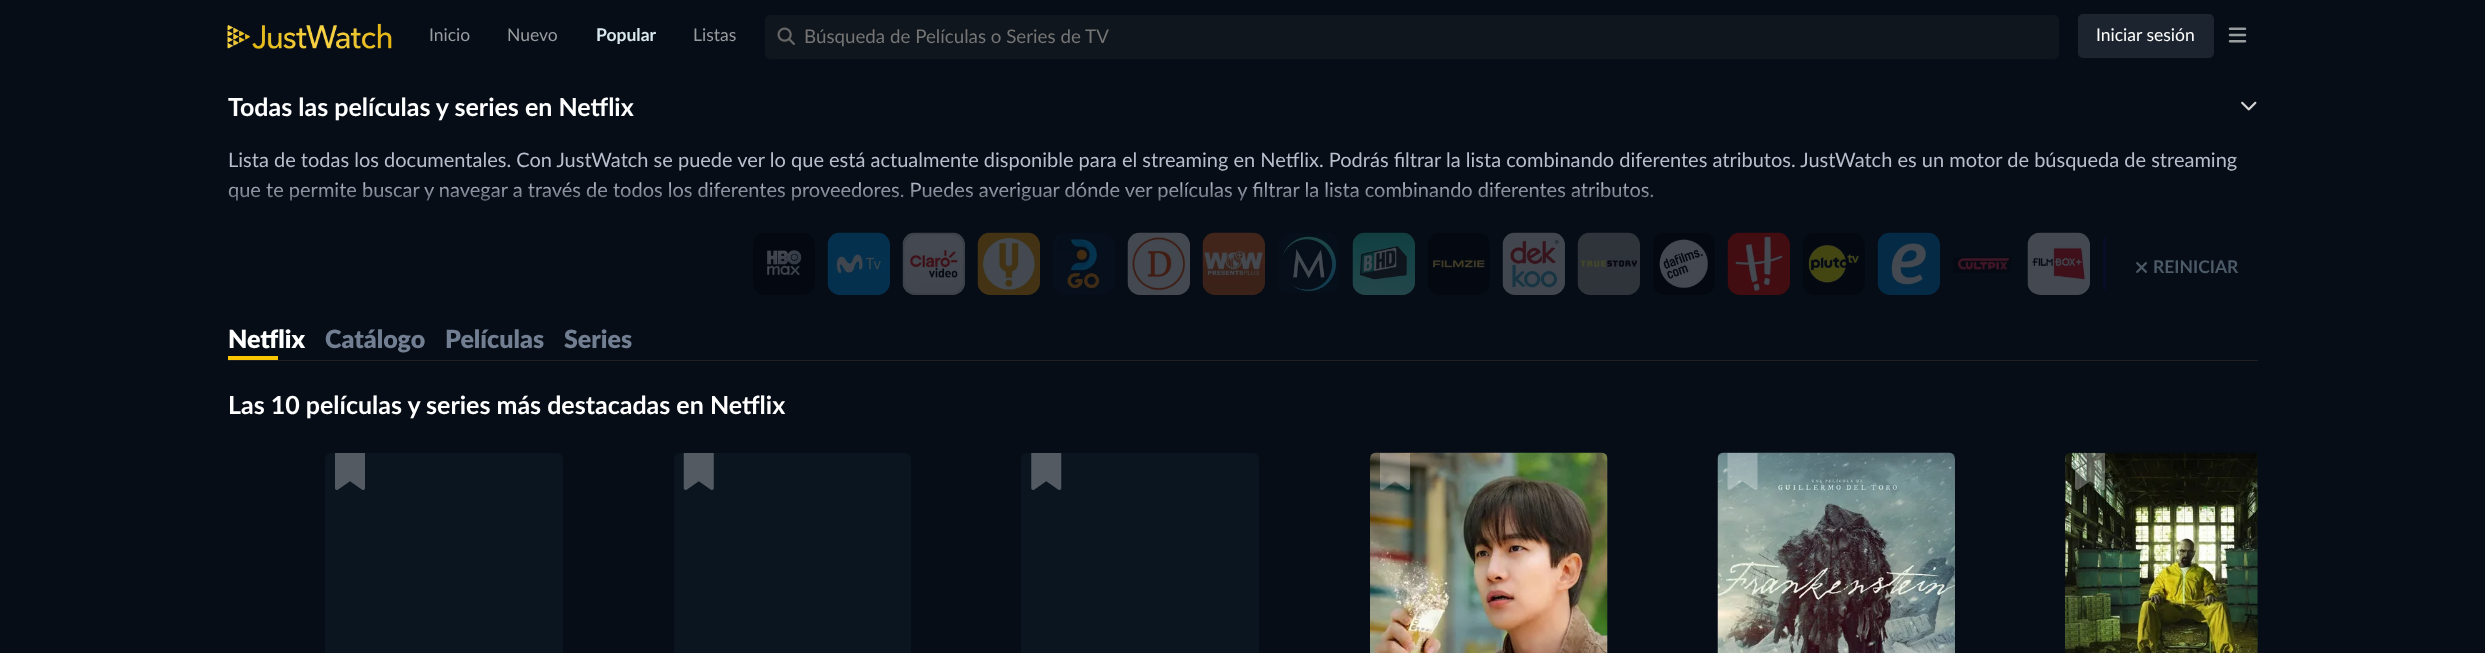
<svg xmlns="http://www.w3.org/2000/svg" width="2485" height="653">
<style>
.a{font:17.5px Lato;fill:#999c9f}
.b{font:bold 17.5px Lato;fill:#d9e8ed}
.c{font:18.75px Lato;fill:#757575}
.d{font:17.5px Lato;fill:#fff}
.e{font:bold 25px Lato;fill:#fff}
.f{font:20px Lato;fill:#b9bdcc}
.g{font:bold 17.5px Lato;fill:#4c5a67}
.h{font:900 25px Lato;fill:#fff}
.i{font:900 25px Lato;fill:#727f92}
</style>
<defs>
<clipPath id="clip1"><path d="M228 70h2030v150H228z"/></clipPath>
<linearGradient id="g1" gradientUnits="userSpaceOnUse" x1="1243" y1="182" x2="1243" y2="220"><stop offset="0" stop-color="#060d17" stop-opacity="0"/><stop offset="1" stop-color="#060d17"/></linearGradient>
</defs>
<rect width="100%" height="100%" fill="#060d17"/>
<image href="1.png" x="227" y="23" width="165" height="26"/>
<rect fill="#10161d" x="765" y="15" width="1294" height="44" rx="5"/>
<image href="2.png" x="777" y="27" width="18" height="18"/>
<rect fill="#1c252f" x="2078" y="14" width="136" height="44" rx="5"/>
<image href="3.png" x="2228" y="27" width="19" height="16"/>
<image href="4.png" x="2241" y="101" width="16" height="10"/>
<image href="5.png" x="753" y="233" width="62" height="62"/>
<image href="6.png" x="827" y="232" width="63" height="63"/>
<image href="7.png" x="902" y="232" width="63" height="63"/>
<image href="8.png" x="977" y="232" width="63" height="63"/>
<image href="9.png" x="1053" y="233" width="62" height="62"/>
<image href="10.png" x="1127" y="232" width="63" height="63"/>
<image href="11.png" x="1202" y="232" width="63" height="63"/>
<image href="12.png" x="1278" y="233" width="60" height="60"/>
<image href="13.png" x="1352" y="232" width="63" height="63"/>
<image href="14.png" x="1428" y="233" width="62" height="62"/>
<image href="15.png" x="1502" y="232" width="63" height="63"/>
<image href="16.png" x="1577" y="232" width="63" height="63"/>
<image href="17.png" x="1653" y="233" width="62" height="62"/>
<image href="18.png" x="1727" y="232" width="63" height="63"/>
<image href="19.png" x="1803" y="233" width="62" height="62"/>
<image href="20.png" x="1877" y="232" width="63" height="63"/>
<image href="21.png" x="1953" y="257" width="58" height="16"/>
<image href="22.png" x="2027" y="232" width="63" height="63"/>
<image href="23.png" x="2103" y="236" width="3" height="55"/>
<image href="24.png" x="2136" y="262" width="11" height="11"/>
<path fill="#212121" d="M228 360h2030v1H228z"/>
<path fill="#fbc500" d="M228 356h50v4H228z"/>
<rect fill="#0a151f" x="325" y="453" width="238" height="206" rx="6"/>
<image href="25.png" x="335" y="453" width="30" height="37"/>
<rect fill="#0a151f" x="674" y="453" width="237" height="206" rx="6"/>
<image href="26.png" x="683" y="453" width="31" height="37"/>
<rect fill="#0a151f" x="1021" y="453" width="238" height="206" rx="6"/>
<image href="27.png" x="1031" y="453" width="31" height="37"/>
<rect fill="#0a151f" x="1370" y="453" width="238" height="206" rx="6"/>
<image href="28.png" x="1370" y="452" width="238" height="201"/>
<image href="29.png" x="1380" y="453" width="30" height="37"/>
<image href="30.png" x="1717" y="452" width="238" height="201"/>
<image href="31.png" x="1727" y="453" width="31" height="37"/>
<path fill="#0a151f" d="M2071 453h187v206h-187c-3.5 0-6-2.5-6-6v-194c0-3.5 2.5-6 6-6z"/>
<image href="32.png" x="2065" y="452" width="193" height="201"/>
<image href="33.png" x="2075" y="453" width="30" height="37"/>
<text class="a" x="429" y="41">Inicio</text>
<text class="a" x="507" y="41">Nuevo</text>
<text class="b" x="596" y="41">Popular</text>
<text class="a" x="693" y="41">Listas</text>
<text class="c" x="804" y="43">Búsqueda de Películas o Series de TV</text>
<text class="d" x="2096" y="41">Iniciar sesión</text>
<g clip-path="url(#clip1)">
<text class="e" x="228" y="116">Todas las películas y series en Netflix</text>
</g>
<text class="f" x="228" y="167">Lista de todas los documentales. Con JustWatch se puede ver lo que está actualmente disponible para el streaming en Netflix. Podrás filtrar la lista combinando diferentes atributos. JustWatch es un motor de búsqueda de streaming</text>
<text class="f" x="228" y="197">que te permite buscar y navegar a través de todos los diferentes proveedores. Puedes averiguar dónde ver películas y filtrar la lista combinando diferentes atributos.</text>
<path fill="url(#g1)" d="M228 183h1425v18H228z"/>
<text class="g" x="2153" y="273">REINICIAR</text>
<text class="h" x="228" y="348">Netflix</text>
<text class="i" x="325" y="348">Catálogo</text>
<text class="i" x="445" y="348">Películas</text>
<text class="i" x="564" y="348">Series</text>
<text class="e" x="228" y="414">Las 10 películas y series más destacadas en Netflix</text>
</svg>
